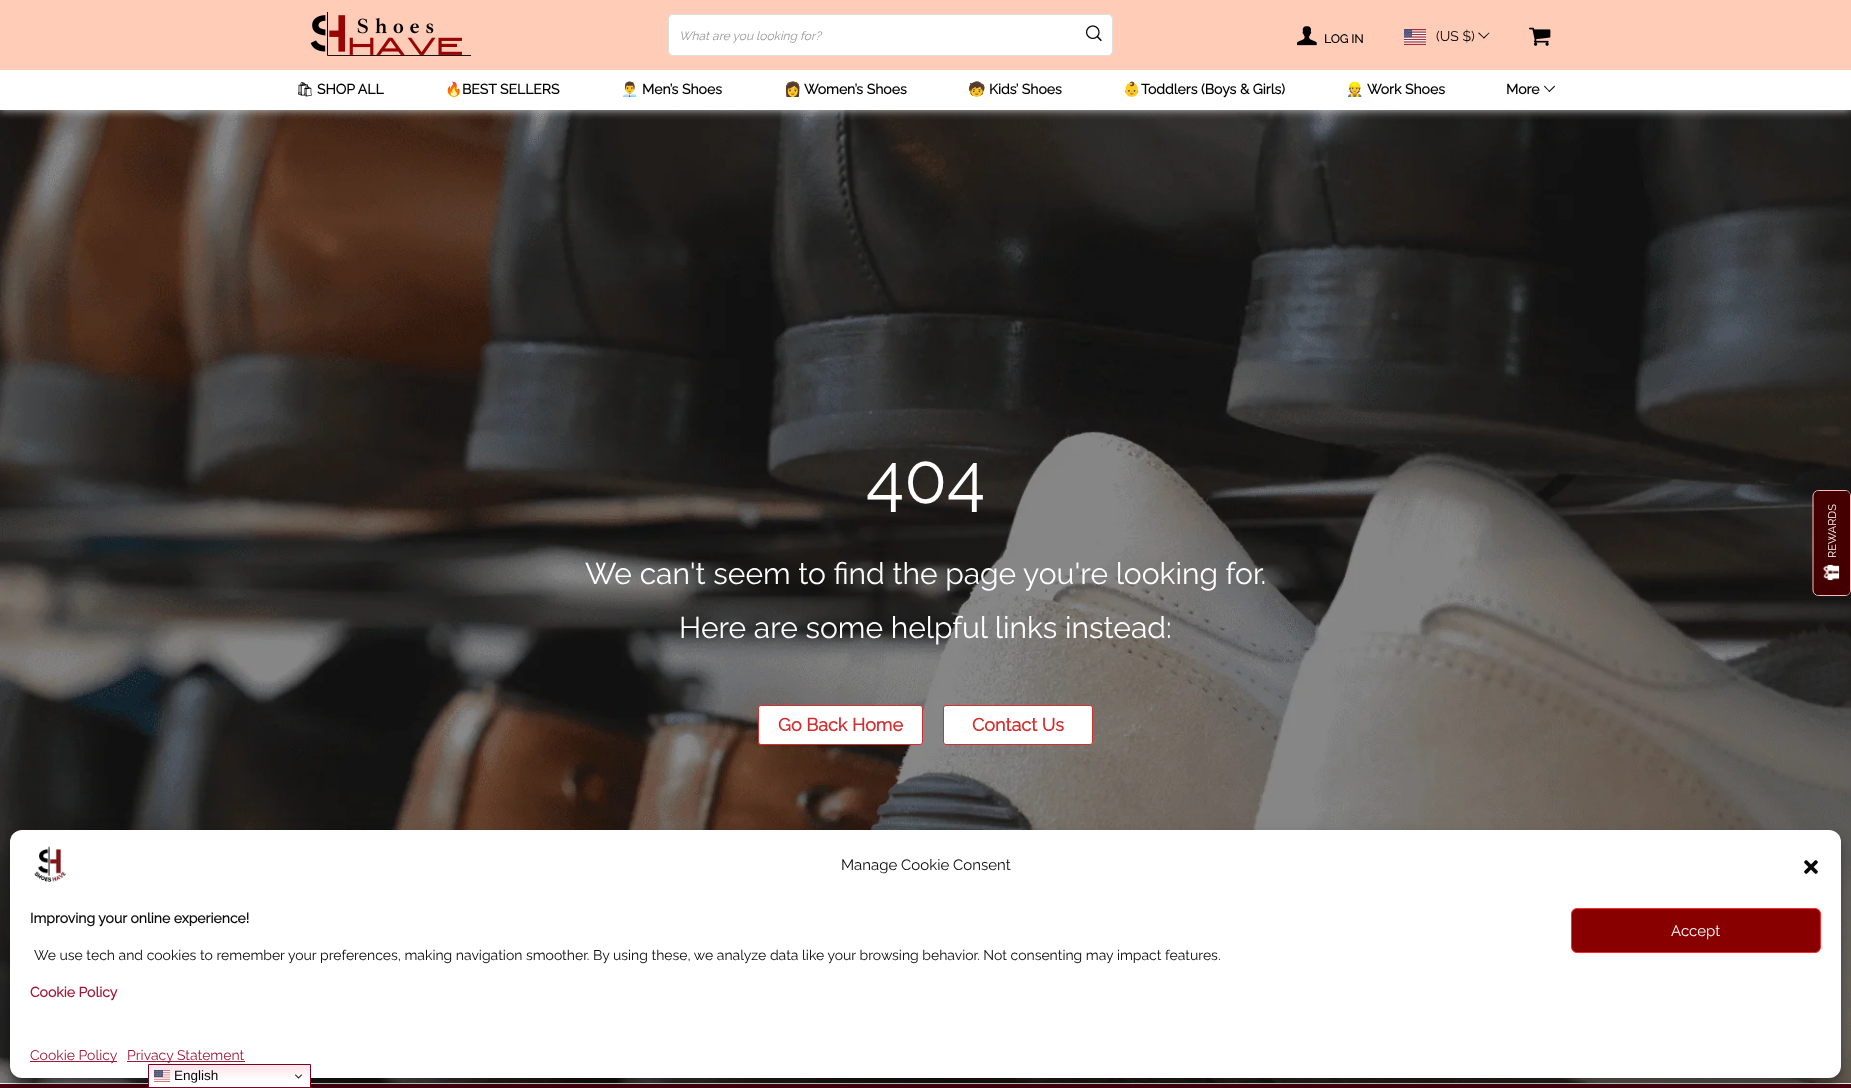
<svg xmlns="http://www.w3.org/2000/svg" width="1851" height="1088">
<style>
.a{font:italic 100 12px Raleway;fill:#999}
.b{font:bold 12px Raleway;fill:#000}
.c{font:100 14px Raleway;fill:#000}
.d{font:600 14px Noto Emoji;fill:#000}
.e{font:bold 14px Raleway;fill:#000}
.f{font:bold 14px Noto Color Emoji;fill:#000}
.g{font:100 70px Raleway;fill:#fff}
.h{font:100 30px Raleway;fill:#fff}
.i{font:bold 18px Raleway;fill:#d32f2f}
.j{font:100 11px Raleway;fill:#fff}
.k{font:100 15px Raleway;fill:#080808}
.l{font:bold 14px Raleway;fill:#080808}
.m{font:100 14px Raleway;fill:#080808}
.n{font:bold 14px Raleway;fill:#9e1938}
.o{font:100 15px Raleway;fill:#fff}
.p{font:100 14px Raleway;fill:#9e1938}
.q{font:13.5px Liberation Sans;fill:#080808}
</style>
<defs>
<linearGradient id="g1" gradientUnits="userSpaceOnUse" x1="230" y1="1064" x2="230" y2="1088"><stop offset="0" stop-color="#ffe2e9"/><stop offset="0.7" stop-color="#fff"/></linearGradient>
</defs>
<rect width="100%" height="100%" fill="#4a0011"/>
<image href="6.png" x="0" y="110" width="1851" height="973"/>
<path fill="#ccc" filter="blur(5px)" d="M0 70h1851v40H0z"/>
<path fill="#ffccb7" d="M0 0h1851v70H0z"/>
<image href="1.png" x="310" y="12" width="161" height="44"/>
<rect fill="#fff" stroke="#dfdfdf" x="668.5" y="14.5" width="444" height="41" rx="4.5"/>
<image href="2.png" x="1086" y="25" width="16" height="16"/>
<image href="3.png" x="1297" y="26" width="20" height="20"/>
<image href="4.png" x="1404" y="29" width="22" height="16"/>
<path fill="#000" d="M1489.5 33l-5.5 5.5l-1-.5l6-5.5z"/>
<path fill="#000" d="M1484.5 38l-.5 .5l-6-5.5l1-.5z"/>
<image href="5.png" x="1529" y="27" width="22" height="19"/>
<path fill="#fff" d="M0 70h1851v40H0z"/>
<path fill="#000" d="M1555 86.5l-5.5 5.5l-1-.5l6-6z"/>
<path fill="#000" d="M1550 91.5l-.5 .5l-5.5-5.5l.5-1z"/>
<rect fill="#fff" stroke="#d32f2f" x="758.5" y="705.5" width="164" height="39" rx="2.5"/>
<rect fill="#fff" stroke="#d32f2f" x="943.5" y="705.5" width="149" height="39" rx="2.5"/>
<path fill="none" stroke="#ffbaba" d="M1813 590v-94c0-3 2.5-5.5 5.5-5.5h26.5c3 0 5.5 2.5 5.5 5.5v94c0 3-2.5 5.5-5.5 5.5h-26.5c-3 0-5.5-2.5-5.5-5.5z"/>
<path fill="#400" d="M1814 592v-98c1-2 3-3 5-3h26c3 0 5 2 5 5v94c0 3-2 5-5 5h-26c-2 0-4-1-5-3z"/>
<image href="7.png" x="1822" y="564" width="18" height="17"/>
<path fill="#eee" d="M0 1083h1851v1H0z"/>
<rect fill="#0000003b" filter="blur(3px)" x="10" y="836" width="1831" height="248" rx="12"/>
<rect fill="#00000030" filter="blur(10px)" x="10" y="840" width="1831" height="248" rx="12"/>
<rect fill="#fff" x="10" y="830" width="1831" height="248" rx="12"/>
<image href="8.png" x="34" y="846" width="32" height="36"/>
<image href="9.png" x="1804" y="860" width="14" height="14"/>
<rect fill="#800" stroke="#ff2828" x="1571.5" y="908.5" width="249" height="44" rx="5.5"/>
<path fill="#9e1938" d="M30 1061h87v1H30z"/>
<path fill="#9e1938" d="M127 1061h118v1H127z"/>
<path fill="url(#g1)" d="M149 1065h161v22H149z"/>
<path fill="none" stroke="#7c0021" d="M148.5 1064.5h162v23H148.5z"/>
<image href="10.png" x="154" y="1070" width="16" height="12"/>
<image href="11.png" x="295" y="1074" width="7" height="5"/>
<text class="a" x="679" y="40">What are you looking for?</text>
<text class="b" x="1324" y="43">LOG IN</text>
<text class="c" x="1436" y="41">(US $)</text>
<text class="d" x="296" y="94">🛍</text>
<text class="e" x="317" y="94">SHOP ALL</text>
<text class="f" x="445" y="94">🔥</text>
<text class="e" x="462" y="94">BEST SELLERS</text>
<text class="f" x="621" y="94">👨‍💼</text>
<text class="e" x="642" y="94">Men’s Shoes</text>
<text class="f" x="784" y="94">👩</text>
<text class="e" x="804" y="94">Women’s Shoes</text>
<text class="f" x="968" y="94">🧒</text>
<text class="e" x="989" y="94">Kids’ Shoes</text>
<text class="f" x="1123" y="94">👶</text>
<text class="e" x="1141" y="94">Toddlers (Boys &amp; Girls)</text>
<text class="f" x="1346" y="94">👷</text>
<text class="e" x="1367" y="94">Work Shoes</text>
<text class="e" x="1506" y="94">More</text>
<text class="g" x="866" y="503">404</text>
<text class="h" x="585" y="584">We can't seem to find the page you're looking for.</text>
<text class="h" x="679" y="638">Here are some helpful links instead:</text>
<text class="i" x="778" y="731">Go Back Home</text>
<text class="i" x="972" y="731">Contact Us</text>
<text class="j" x="1836" y="558" transform="rotate(-90 1836 558)">REWARDS</text>
<text class="k" x="841" y="870">Manage Cookie Consent</text>
<text class="l" x="30" y="923">Improving your online experience!</text>
<text class="m" x="34" y="960">We use tech and cookies to remember your preferences, making navigation smoother. By using these, we analyze data like your browsing behavior. Not consenting may impact features.</text>
<text class="n" x="30" y="997">Cookie Policy</text>
<text class="o" x="1671" y="936">Accept</text>
<text class="p" x="30" y="1060">Cookie Policy</text>
<text class="p" x="127" y="1060">Privacy Statement</text>
<text class="q" x="174" y="1080">English</text>
</svg>
